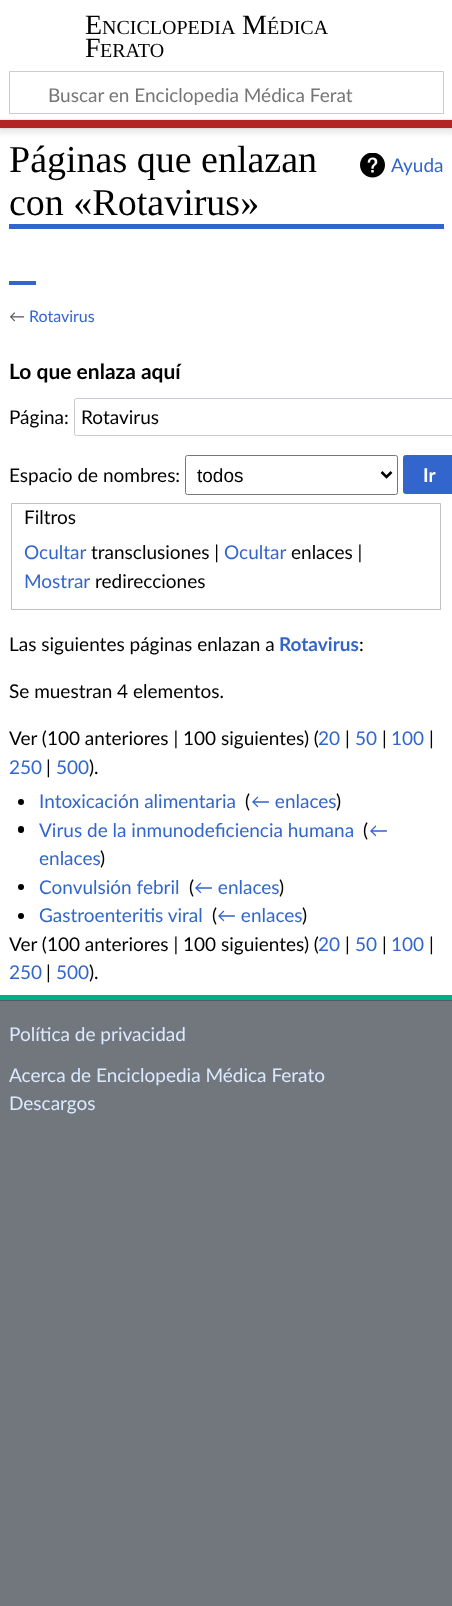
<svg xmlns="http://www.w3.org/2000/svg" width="452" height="1606">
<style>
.a{font:28px Liberation Serif;fill:#000}
.b{font:20px Liberation Serif;fill:#000}
.c{font:19px Lato;fill:#757575}
.d{font:38px Liberation Serif;fill:#000}
.e{font:19px Lato;fill:#36c}
.f{font:16px Lato;fill:#54595d}
.g{font:16px Lato;fill:#36c}
.h{font:bold 21px Lato;fill:#000}
.i{font:19px Lato;fill:#000}
.j{font:19px Liberation Sans;fill:#000}
.k{font:bold 19px Lato;fill:#fff}
.l{font:bold 19px Lato;fill:#36c}
.m{font:19px Lato;fill:#dbeaff}
</style>
<defs>
<clipPath id="clip1"><path d="M48 83h305v22H48z"/></clipPath>
</defs>
<rect width="100%" height="100%" fill="#72777d"/>
<path fill="#fff" d="M0 0h452v120H0z"/>
<path fill="none" stroke="#c8ccd1" d="M9.5 71.5h434v42H9.5z"/>
<path fill="#fff" d="M0 128h452v867H0z"/>
<path fill="#00000033" filter="blur(1px)" d="M0 120h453v8H0z"/>
<path fill="#00000012" filter="blur(2px)" d="M-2 121h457v13H-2z"/>
<path fill="#b32424" d="M0 120h452v8H0z"/>
<path fill="#00af89" d="M0 995h452v5H0z"/>
<path fill="#36c" d="M9 224h435v5H9z"/>
<image href="1.png" x="360" y="153" width="25" height="25"/>
<path fill="#36c" d="M9 281h27v4H9z"/>
<rect fill="none" stroke="#c8ccd1" x="74.5" y="398.5" width="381" height="37" rx="2"/>
<rect fill="none" stroke="#767676" x="185.5" y="455.5" width="212" height="39" rx="2"/>
<path fill="none" stroke="#000" stroke-width="2.5" d="M381.5 472l5 5l5-5"/>
<rect fill="#36c" stroke="#36c" x="403.5" y="455.5" width="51" height="38" rx="2"/>
<path fill="none" stroke="#c0c0c0" d="M11.5 503.5h429v106H11.5z"/>
<circle fill="#000" cx="21" cy="802" r="3"/>
<rect fill="#000" x="18" y="826" width="6" height="7" rx="3"/>
<circle fill="#000" cx="21" cy="887" r="3"/>
<circle fill="#000" cx="21" cy="916" r="3"/>
<path fill="#54595d" d="M0 1000h452v1H0z"/>
<text class="a" x="85" y="34">E</text>
<text class="b" x="102" y="34">NCICLOPEDIA</text>
<text class="a" x="242" y="34">M</text>
<text class="b" x="267" y="34">ÉDICA</text>
<text class="a" x="85" y="57">F</text>
<text class="b" x="100" y="57">ERATO</text>
<g clip-path="url(#clip1)">
<text class="c" x="48" y="102">Buscar en Enciclopedia Médica Ferat</text>
</g>
<text class="d" x="9" y="172">Páginas que enlazan</text>
<text class="d" x="9" y="215">con «Rotavirus»</text>
<text class="e" x="391" y="172">Ayuda</text>
<text class="f" x="9" y="322">←</text>
<text class="g" x="29" y="322">Rotavirus</text>
<text class="h" x="9" y="379">Lo que enlaza aquí</text>
<text class="i" x="9" y="424">Página:</text>
<text class="i" x="81" y="424">Rotavirus</text>
<text class="i" x="9" y="482">Espacio de nombres:</text>
<text class="j" x="197" y="482">todos</text>
<text class="k" x="423" y="482">Ir</text>
<text class="i" x="24" y="524">Filtros</text>
<text class="e" x="24" y="559">Ocultar</text>
<text class="i" x="91" y="559">transclusiones |</text>
<text class="e" x="224" y="559">Ocultar</text>
<text class="i" x="291" y="559">enlaces |</text>
<text class="e" x="24" y="588">Mostrar</text>
<text class="i" x="95" y="588">redirecciones</text>
<text class="i" x="9" y="651">Las siguientes páginas enlazan a</text>
<text class="l" x="279" y="651">Rotavirus</text>
<text class="i" x="359" y="651">:</text>
<text class="i" x="9" y="698">Se muestran 4 elementos.</text>
<text class="i" x="9" y="745">Ver (100 anteriores | 100 siguientes) (</text>
<text class="e" x="318" y="745">20</text>
<text class="i" x="345" y="745">|</text>
<text class="e" x="355" y="745">50</text>
<text class="i" x="382" y="745">|</text>
<text class="e" x="391" y="745">100</text>
<text class="i" x="429" y="745">|</text>
<text class="e" x="9" y="774">250</text>
<text class="i" x="46" y="774">|</text>
<text class="e" x="56" y="774">500</text>
<text class="i" x="89" y="774">).</text>
<text class="e" x="39" y="808">Intoxicación alimentaria</text>
<text class="i" x="245" y="808">(</text>
<text class="e" x="251" y="808">← enlaces</text>
<text class="i" x="336" y="808">)</text>
<text class="e" x="39" y="837">Virus de la inmunodeficiencia humana</text>
<text class="i" x="363" y="837">(</text>
<text class="e" x="369" y="837">←</text>
<text class="e" x="39" y="865">enlaces</text>
<text class="i" x="100" y="865">)</text>
<text class="e" x="39" y="894">Convulsión febril</text>
<text class="i" x="189" y="894">(</text>
<text class="e" x="194" y="894">← enlaces</text>
<text class="i" x="279" y="894">)</text>
<text class="e" x="39" y="922">Gastroenteritis viral</text>
<text class="i" x="212" y="922">(</text>
<text class="e" x="217" y="922">← enlaces</text>
<text class="i" x="302" y="922">)</text>
<text class="i" x="9" y="951">Ver (100 anteriores | 100 siguientes) (</text>
<text class="e" x="318" y="951">20</text>
<text class="i" x="345" y="951">|</text>
<text class="e" x="355" y="951">50</text>
<text class="i" x="382" y="951">|</text>
<text class="e" x="391" y="951">100</text>
<text class="i" x="429" y="951">|</text>
<text class="e" x="9" y="979">250</text>
<text class="i" x="46" y="979">|</text>
<text class="e" x="56" y="979">500</text>
<text class="i" x="89" y="979">).</text>
<text class="m" x="9" y="1041">Política de privacidad</text>
<text class="m" x="9" y="1082">Acerca de Enciclopedia Médica Ferato</text>
<text class="m" x="9" y="1110">Descargos</text>
</svg>
